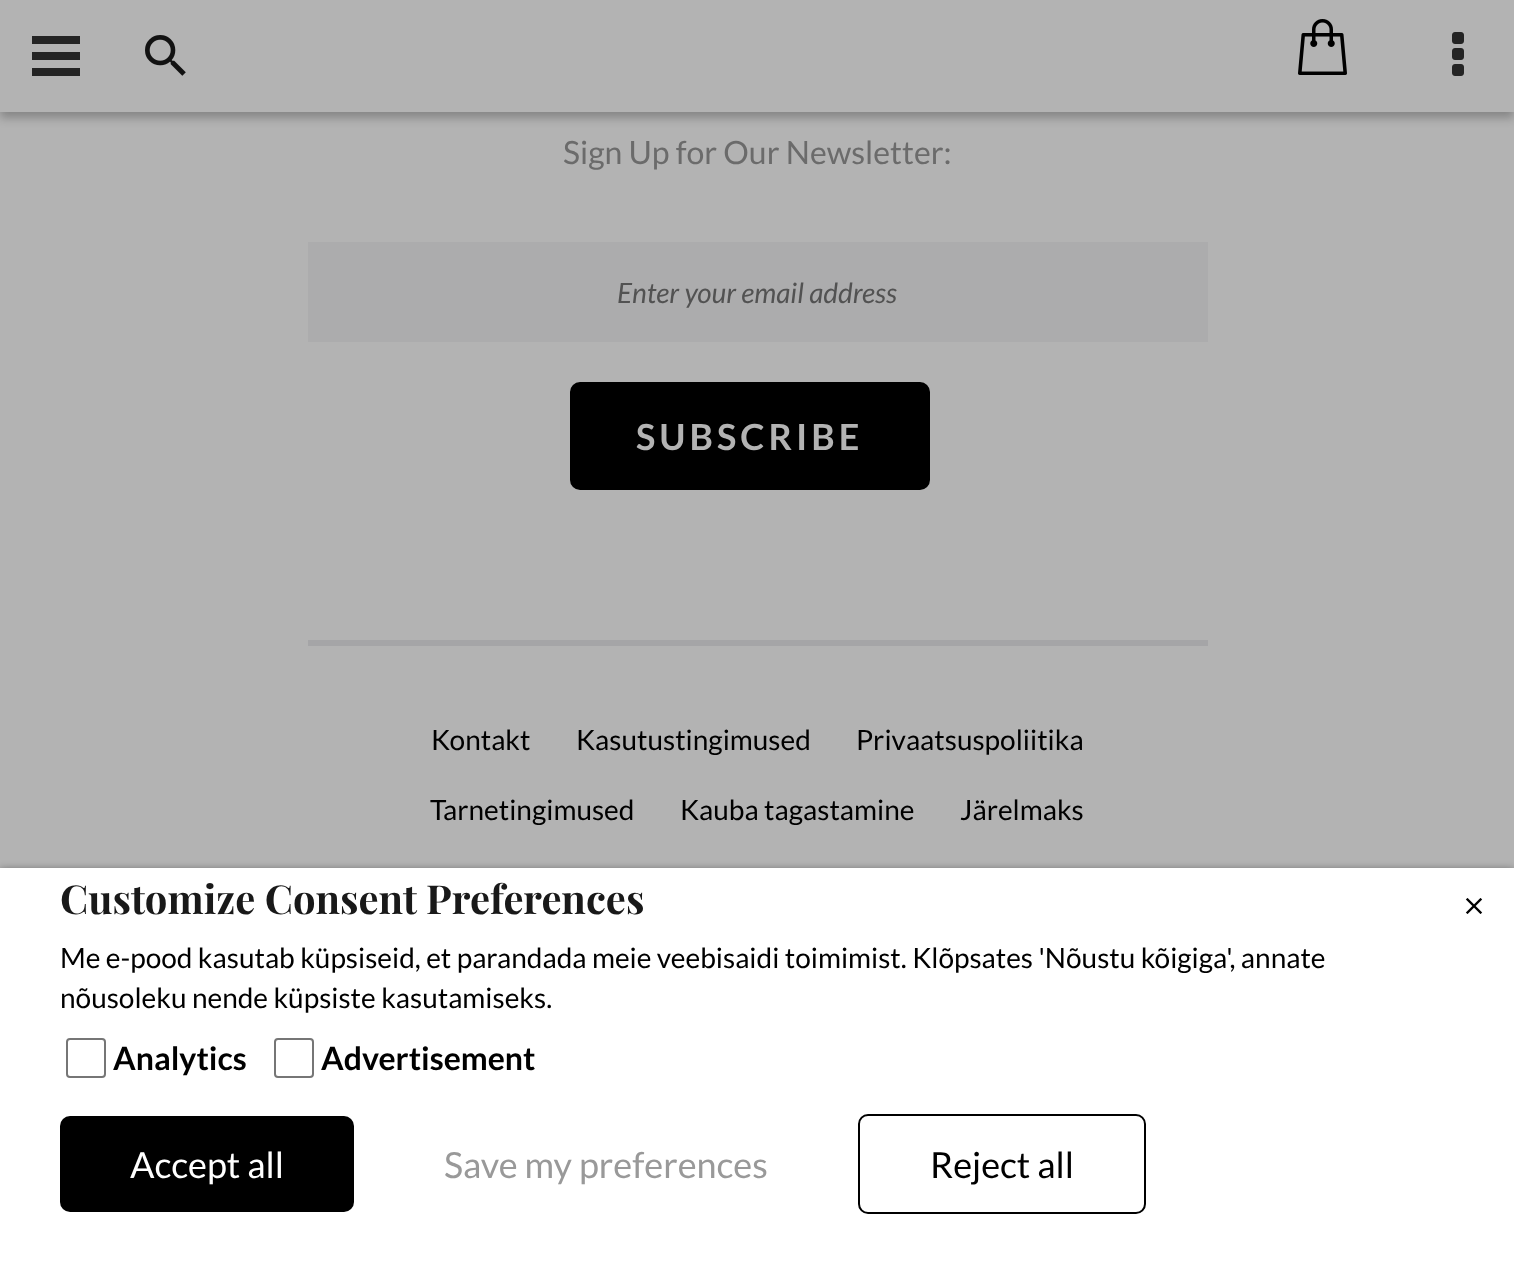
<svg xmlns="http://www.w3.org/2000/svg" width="1514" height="1274">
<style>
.a{font:32px Lato;fill:#6b6b6b}
.b{font:italic 28px Lato;fill:#525252}
.c{font:bold 36px Lato;letter-spacing:4px;fill:#b3b3b3}
.d{font:28px Lato;fill:#000}
.e{font:bold 40px Playfair Display;fill:#191919}
.f{font:bold 32px Lato;fill:#000}
.g{font:36px Lato;fill:#fff}
.h{font:36px Lato;fill:#999}
.i{font:36px Lato;fill:#000}
</style>
<rect width="100%" height="100%" fill="#b3b3b3"/>
<path fill="#00000040" filter="blur(5px)" d="M0 6h1514v112H0z"/>
<path fill="#b3b3b3" d="M0 0h1514v112H0z"/>
<path fill="#242424" d="M32 52h48v8H32z"/>
<path fill="#242424" d="M32 36h48v8H32z"/>
<path fill="#242424" d="M32 68h48v8H32z"/>
<image href="1.png" x="145" y="35" width="41" height="41"/>
<image href="2.png" x="1298" y="19" width="49" height="56"/>
<image href="3.png" x="1452" y="32" width="12" height="44"/>
<path fill="#acacad" d="M308 242h900v100H308z"/>
<rect fill="#000" stroke="#000" stroke-width="6" x="573" y="385" width="354" height="102" rx="7"/>
<path fill="#a5a5a7" d="M308 640h900v6H308z"/>
<path fill="#00000080" filter="blur(4px)" d="M0 870h1514v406H0z"/>
<path fill="#fff" d="M0 868h1514v406H0z"/>
<image href="4.png" x="1465" y="898" width="18" height="16"/>
<rect fill="none" stroke="#767676" stroke-width="2" x="67" y="1039" width="38" height="38" rx="3"/>
<rect fill="none" stroke="#767676" stroke-width="2" x="275" y="1039" width="38" height="38" rx="3"/>
<rect fill="#000" x="60" y="1116" width="294" height="96" rx="10"/>
<rect fill="none" stroke="#000" stroke-width="2" x="859" y="1115" width="286" height="98" rx="9"/>
<text class="a" x="563" y="164">Sign Up for Our Newsletter:</text>
<text class="b" x="617" y="303">Enter your email address</text>
<text class="c" x="636" y="450">SUBSCRIBE</text>
<text class="d" x="431" y="750">Kontakt</text>
<text class="d" x="576" y="750">Kasutustingimused</text>
<text class="d" x="856" y="750">Privaatsuspoliitika</text>
<text class="d" x="430" y="820">Tarnetingimused</text>
<text class="d" x="680" y="820">Kauba tagastamine</text>
<text class="d" x="960" y="820">Järelmaks</text>
<text class="e" x="60" y="914">Customize Consent Preferences</text>
<text class="d" x="60" y="968">Me e-pood kasutab küpsiseid, et parandada meie veebisaidi toimimist. Klõpsates 'Nõustu kõigiga', annate</text>
<text class="d" x="60" y="1008">nõusoleku nende küpsiste kasutamiseks.</text>
<text class="f" x="113" y="1070">Analytics</text>
<text class="f" x="321" y="1070">Advertisement</text>
<text class="g" x="130" y="1178">Accept all</text>
<text class="h" x="444" y="1178">Save my preferences</text>
<text class="i" x="930" y="1178">Reject all</text>
</svg>
